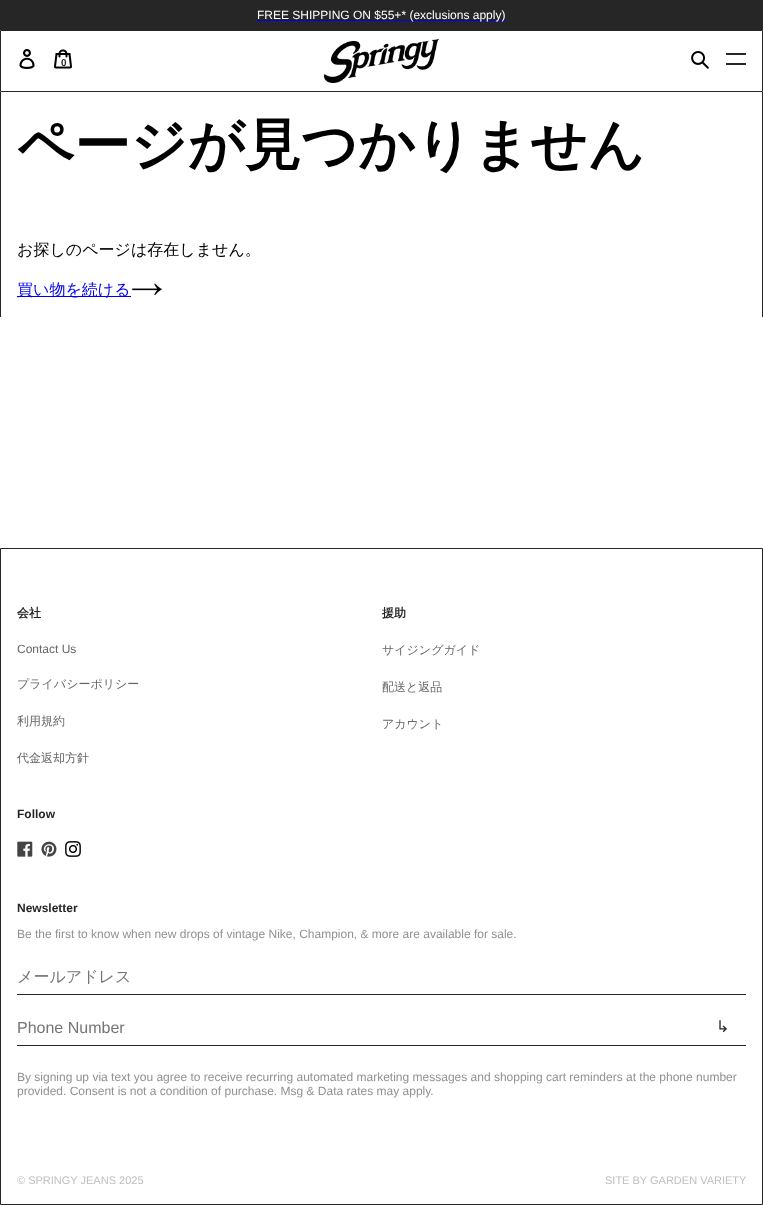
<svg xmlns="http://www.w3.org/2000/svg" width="763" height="1205">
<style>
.a{font:12px Liberation Sans;fill:#fff}
.b{font:bold 10px Liberation Sans;fill:#262626}
.c{font:bold 56px WenQuanYi Zen Hei;fill:#000}
.d{font:500 16px WenQuanYi Zen Hei;fill:#000}
.e{font:500 16px WenQuanYi Zen Hei;fill:#00e}
.f{font:bold 12px WenQuanYi Zen Hei;fill:#262626}
.g{font:12px Liberation Sans;fill:#676767}
.h{font:500 12px WenQuanYi Zen Hei;fill:#676767}
.i{font:bold 12px Liberation Sans;fill:#262626}
.j{font:12px Liberation Sans;fill:#919191}
.k{font:500 16px WenQuanYi Zen Hei;fill:#757575}
.l{font:16px Liberation Sans;fill:#757575}
.m{font:16px DejaVu Sans;fill:#262626}
.n{font:11px Liberation Sans;fill:#bebebe}
</style>
<rect width="100%" height="100%" fill="#fff"/>
<path fill="#262626" d="M0 0h763v30H0z"/>
<path fill="#00e" d="M257 20h249v1H257z"/>
<path fill="none" stroke="#262626" d="M0.5 30.5h762v61H0.5z"/>
<image href="1.png" x="19" y="49" width="16" height="20"/>
<image href="2.png" x="54" y="49" width="18" height="20"/>
<image href="3.png" x="324" y="39" width="115" height="44"/>
<image href="4.png" x="691" y="51" width="18" height="18"/>
<path fill="#262626" d="M726 53h20v2H726z"/>
<path fill="#262626" d="M726 63h20v2H726z"/>
<path fill="#262626" d="M762 92h1v225H762z"/>
<path fill="#262626" d="M0 92h1v225H0z"/>
<path fill="#00e" d="M17 296h114v1H17z"/>
<image href="5.png" x="132" y="283" width="30" height="12"/>
<path fill="none" stroke="#262626" d="M0.5 548.5h762v656H0.5z"/>
<image href="6.png" x="17" y="841" width="16" height="16"/>
<image href="7.png" x="41" y="841" width="16" height="16"/>
<image href="8.png" x="65" y="841" width="16" height="16"/>
<path fill="#262626" d="M17 994h729v1H17z"/>
<path fill="#262626" d="M17 1045h729v1H17z"/>
<text class="a" x="257" y="19">FREE SHIPPING ON $55+* (exclusions apply)</text>
<text class="b" x="61" y="66">0</text>
<text class="c" x="17" y="164">ページが見つかりません</text>
<text class="d" x="17" y="255">お探しのページは存在しません。</text>
<text class="e" x="17" y="295">買い物を続ける</text>
<text class="f" x="17" y="617">会社</text>
<text class="g" x="17" y="653">Contact Us</text>
<text class="h" x="17" y="688">プライバシーポリシー</text>
<text class="h" x="17" y="725">利用規約</text>
<text class="h" x="17" y="762">代金返却方針</text>
<text class="i" x="17" y="818">Follow</text>
<text class="f" x="382" y="617">援助</text>
<text class="h" x="382" y="654">サイジングガイド</text>
<text class="h" x="382" y="691">配送と返品</text>
<text class="h" x="382" y="728">アカウント</text>
<text class="i" x="17" y="912">Newsletter</text>
<text class="j" x="17" y="938">Be the first to know when new drops of vintage Nike, Champion, &amp; more are available for sale.</text>
<text class="k" x="17" y="982">メールアドレス</text>
<text class="l" x="17" y="1033">Phone Number</text>
<text class="m" x="716" y="1032">↳</text>
<text class="j" x="17" y="1081">By signing up via text you agree to receive recurring automated marketing messages and shopping cart reminders at the phone number</text>
<text class="j" x="17" y="1095">provided. Consent is not a condition of purchase. Msg &amp; Data rates may apply.</text>
<text class="n" x="17" y="1184">© SPRINGY JEANS 2025</text>
<text class="n" x="605" y="1184">SITE BY GARDEN VARIETY</text>
</svg>
